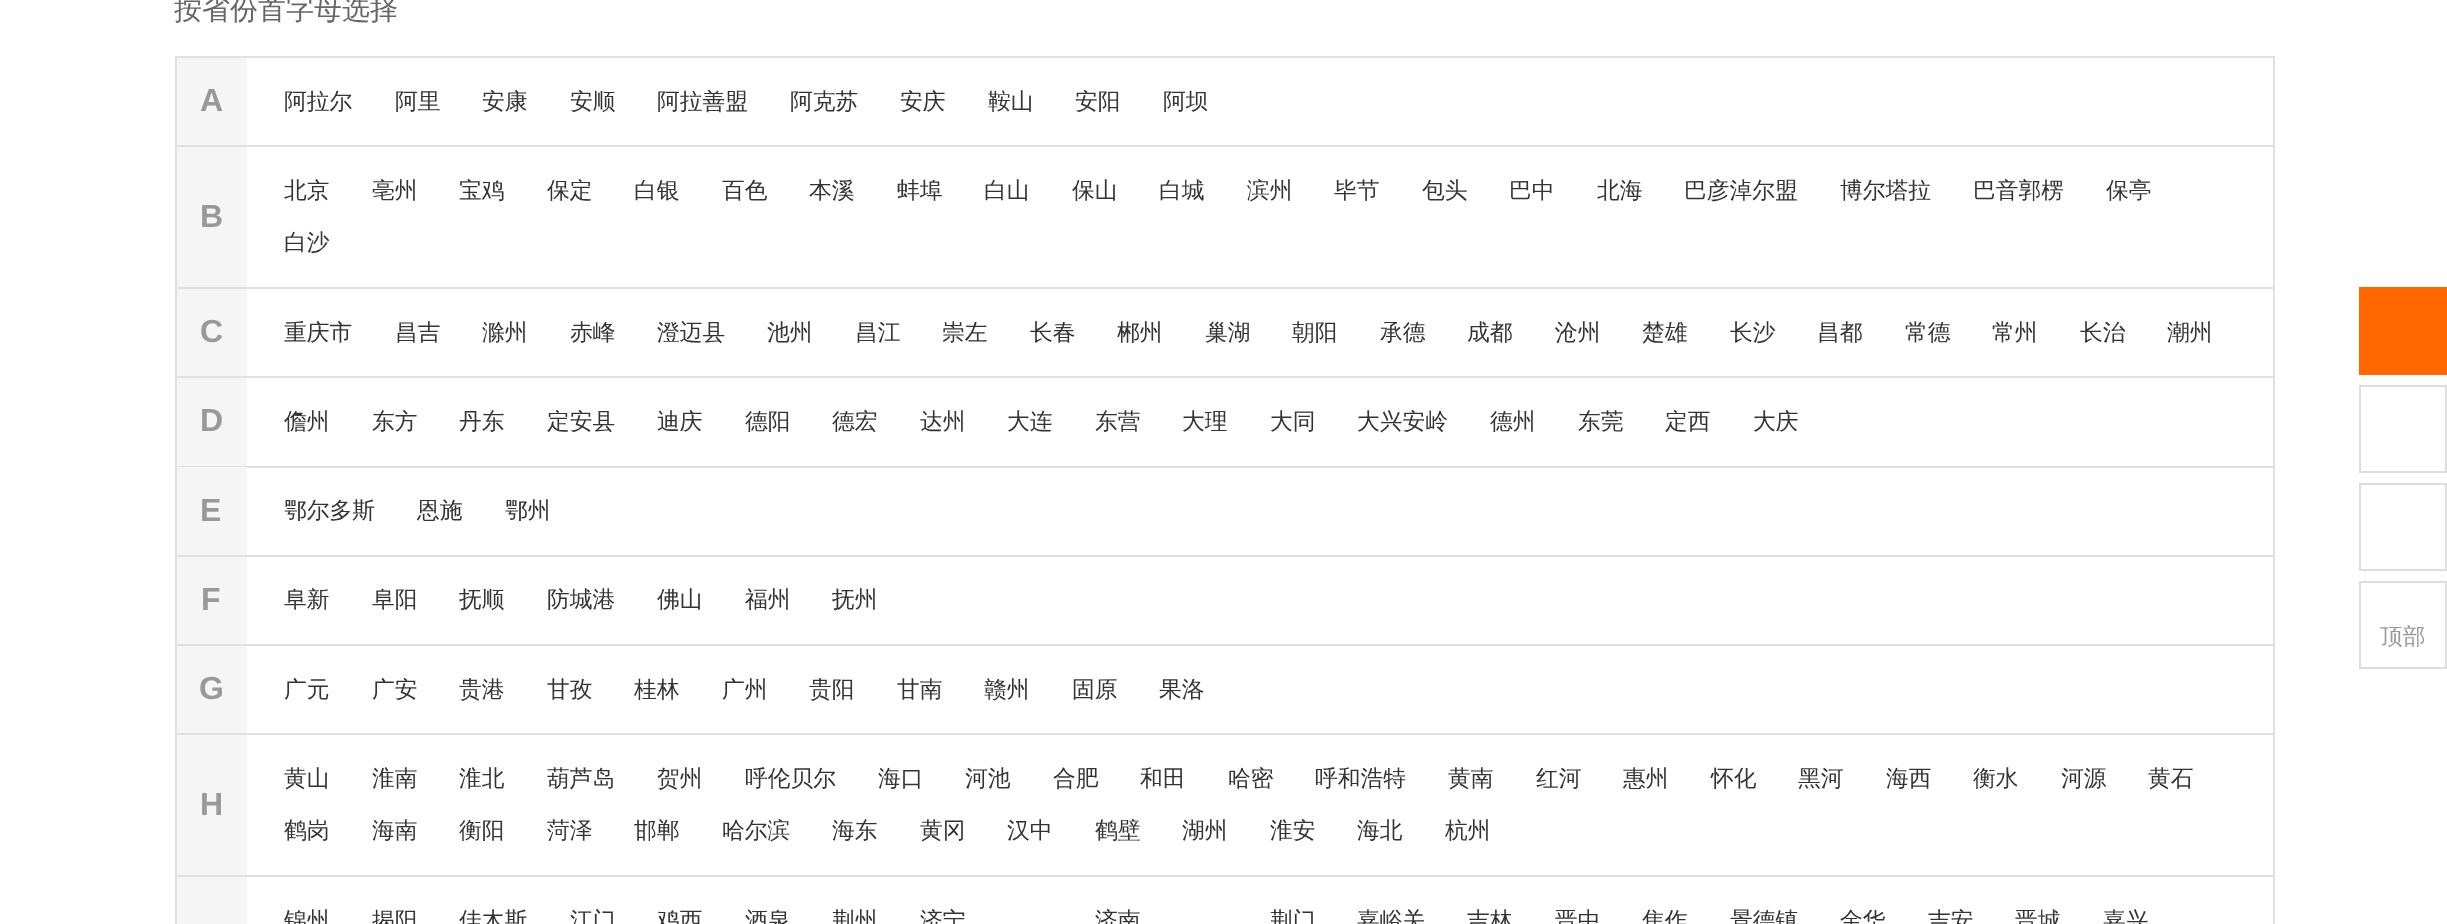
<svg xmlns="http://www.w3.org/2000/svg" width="2447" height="924">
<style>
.a{font:500 28px WenQuanYi Zen Hei;fill:#666}
.b{font:bold 32px Liberation Sans;fill:#999}
.c{font:500 22.75px WenQuanYi Zen Hei;fill:#333}
.d{font:500 22.75px WenQuanYi Zen Hei;fill:#999}
</style>
<rect width="100%" height="100%" fill="#fff"/>
<path fill="none" stroke="#e0e0e0" stroke-width="2" d="M176 57h2098v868H176z"/>
<path fill="#e0e0e0" d="M177 145h2096v2H177z"/>
<path fill="#f5f5f5" d="M177 58h70v87H177z"/>
<path fill="#e0e0e0" d="M177 287h2096v2H177z"/>
<path fill="#f5f5f5" d="M177 147h70v140H177z"/>
<path fill="#e0e0e0" d="M177 376h2096v2H177z"/>
<path fill="#f5f5f5" d="M177 289h70v87H177z"/>
<path fill="#e0e0e0" d="M177 466h2096v2H177z"/>
<path fill="#f5f5f5" d="M177 378h70v88H177z"/>
<path fill="#e0e0e0" d="M177 555h2096v2H177z"/>
<path fill="#f5f5f5" d="M177 467h70v88H177z"/>
<path fill="#e0e0e0" d="M177 644h2096v2H177z"/>
<path fill="#f5f5f5" d="M177 557h70v87H177z"/>
<path fill="#e0e0e0" d="M177 733h2096v2H177z"/>
<path fill="#f5f5f5" d="M177 646h70v87H177z"/>
<path fill="#e0e0e0" d="M177 875h2096v2H177z"/>
<path fill="#f5f5f5" d="M177 735h70v140H177z"/>
<path fill="#f5f5f5" d="M177 877h70v47H177z"/>
<path fill="#ff6800" d="M2359 287h88v88H2359z"/>
<path fill="none" stroke="#ddd" stroke-width="2" d="M2360 386h86v86H2360z"/>
<path fill="none" stroke="#ddd" stroke-width="2" d="M2360 484h86v86H2360z"/>
<path fill="none" stroke="#ddd" stroke-width="2" d="M2360 582h86v86H2360z"/>
<text class="a" x="174" y="19">按省份首字母选择</text>
<text class="b" x="200" y="111">A</text>
<text class="c" x="284" y="109">阿拉尔</text>
<text class="c" x="395" y="109">阿里</text>
<text class="c" x="482" y="109">安康</text>
<text class="c" x="570" y="109">安顺</text>
<text class="c" x="657" y="109">阿拉善盟</text>
<text class="c" x="790" y="109">阿克苏</text>
<text class="c" x="900" y="109">安庆</text>
<text class="c" x="988" y="109">鞍山</text>
<text class="c" x="1075" y="109">安阳</text>
<text class="c" x="1163" y="109">阿坝</text>
<text class="b" x="200" y="227">B</text>
<text class="c" x="284" y="198">北京</text>
<text class="c" x="372" y="198">亳州</text>
<text class="c" x="459" y="198">宝鸡</text>
<text class="c" x="547" y="198">保定</text>
<text class="c" x="634" y="198">白银</text>
<text class="c" x="722" y="198">百色</text>
<text class="c" x="809" y="198">本溪</text>
<text class="c" x="897" y="198">蚌埠</text>
<text class="c" x="984" y="198">白山</text>
<text class="c" x="1072" y="198">保山</text>
<text class="c" x="1159" y="198">白城</text>
<text class="c" x="1247" y="198">滨州</text>
<text class="c" x="1334" y="198">毕节</text>
<text class="c" x="1422" y="198">包头</text>
<text class="c" x="1509" y="198">巴中</text>
<text class="c" x="1597" y="198">北海</text>
<text class="c" x="1684" y="198">巴彦淖尔盟</text>
<text class="c" x="1840" y="198">博尔塔拉</text>
<text class="c" x="1973" y="198">巴音郭楞</text>
<text class="c" x="2106" y="198">保亭</text>
<text class="c" x="284" y="250">白沙</text>
<text class="b" x="200" y="342">C</text>
<text class="c" x="284" y="340">重庆市</text>
<text class="c" x="395" y="340">昌吉</text>
<text class="c" x="482" y="340">滁州</text>
<text class="c" x="570" y="340">赤峰</text>
<text class="c" x="657" y="340">澄迈县</text>
<text class="c" x="767" y="340">池州</text>
<text class="c" x="855" y="340">昌江</text>
<text class="c" x="942" y="340">崇左</text>
<text class="c" x="1030" y="340">长春</text>
<text class="c" x="1117" y="340">郴州</text>
<text class="c" x="1205" y="340">巢湖</text>
<text class="c" x="1292" y="340">朝阳</text>
<text class="c" x="1380" y="340">承德</text>
<text class="c" x="1467" y="340">成都</text>
<text class="c" x="1555" y="340">沧州</text>
<text class="c" x="1642" y="340">楚雄</text>
<text class="c" x="1730" y="340">长沙</text>
<text class="c" x="1817" y="340">昌都</text>
<text class="c" x="1905" y="340">常德</text>
<text class="c" x="1992" y="340">常州</text>
<text class="c" x="2080" y="340">长治</text>
<text class="c" x="2167" y="340">潮州</text>
<text class="b" x="200" y="431">D</text>
<text class="c" x="284" y="429">儋州</text>
<text class="c" x="372" y="429">东方</text>
<text class="c" x="459" y="429">丹东</text>
<text class="c" x="547" y="429">定安县</text>
<text class="c" x="657" y="429">迪庆</text>
<text class="c" x="745" y="429">德阳</text>
<text class="c" x="832" y="429">德宏</text>
<text class="c" x="920" y="429">达州</text>
<text class="c" x="1007" y="429">大连</text>
<text class="c" x="1095" y="429">东营</text>
<text class="c" x="1182" y="429">大理</text>
<text class="c" x="1270" y="429">大同</text>
<text class="c" x="1357" y="429">大兴安岭</text>
<text class="c" x="1490" y="429">德州</text>
<text class="c" x="1578" y="429">东莞</text>
<text class="c" x="1665" y="429">定西</text>
<text class="c" x="1753" y="429">大庆</text>
<text class="b" x="200" y="521">E</text>
<text class="c" x="284" y="518">鄂尔多斯</text>
<text class="c" x="417" y="518">恩施</text>
<text class="c" x="505" y="518">鄂州</text>
<text class="b" x="201" y="610">F</text>
<text class="c" x="284" y="607">阜新</text>
<text class="c" x="372" y="607">阜阳</text>
<text class="c" x="459" y="607">抚顺</text>
<text class="c" x="547" y="607">防城港</text>
<text class="c" x="657" y="607">佛山</text>
<text class="c" x="745" y="607">福州</text>
<text class="c" x="832" y="607">抚州</text>
<text class="b" x="199" y="699">G</text>
<text class="c" x="284" y="697">广元</text>
<text class="c" x="372" y="697">广安</text>
<text class="c" x="459" y="697">贵港</text>
<text class="c" x="547" y="697">甘孜</text>
<text class="c" x="634" y="697">桂林</text>
<text class="c" x="722" y="697">广州</text>
<text class="c" x="809" y="697">贵阳</text>
<text class="c" x="897" y="697">甘南</text>
<text class="c" x="984" y="697">赣州</text>
<text class="c" x="1072" y="697">固原</text>
<text class="c" x="1159" y="697">果洛</text>
<text class="b" x="200" y="815">H</text>
<text class="c" x="284" y="786">黄山</text>
<text class="c" x="372" y="786">淮南</text>
<text class="c" x="459" y="786">淮北</text>
<text class="c" x="547" y="786">葫芦岛</text>
<text class="c" x="657" y="786">贺州</text>
<text class="c" x="745" y="786">呼伦贝尔</text>
<text class="c" x="878" y="786">海口</text>
<text class="c" x="965" y="786">河池</text>
<text class="c" x="1053" y="786">合肥</text>
<text class="c" x="1140" y="786">和田</text>
<text class="c" x="1228" y="786">哈密</text>
<text class="c" x="1315" y="786">呼和浩特</text>
<text class="c" x="1448" y="786">黄南</text>
<text class="c" x="1536" y="786">红河</text>
<text class="c" x="1623" y="786">惠州</text>
<text class="c" x="1711" y="786">怀化</text>
<text class="c" x="1798" y="786">黑河</text>
<text class="c" x="1886" y="786">海西</text>
<text class="c" x="1973" y="786">衡水</text>
<text class="c" x="2061" y="786">河源</text>
<text class="c" x="2148" y="786">黄石</text>
<text class="c" x="284" y="838">鹤岗</text>
<text class="c" x="372" y="838">海南</text>
<text class="c" x="459" y="838">衡阳</text>
<text class="c" x="547" y="838">菏泽</text>
<text class="c" x="634" y="838">邯郸</text>
<text class="c" x="722" y="838">哈尔滨</text>
<text class="c" x="832" y="838">海东</text>
<text class="c" x="920" y="838">黄冈</text>
<text class="c" x="1007" y="838">汉中</text>
<text class="c" x="1095" y="838">鹤壁</text>
<text class="c" x="1182" y="838">湖州</text>
<text class="c" x="1270" y="838">淮安</text>
<text class="c" x="1357" y="838">海北</text>
<text class="c" x="1445" y="838">杭州</text>
<text class="c" x="284" y="928">锦州</text>
<text class="c" x="372" y="928">揭阳</text>
<text class="c" x="459" y="928">佳木斯</text>
<text class="c" x="570" y="928">江门</text>
<text class="c" x="657" y="928">鸡西</text>
<text class="c" x="745" y="928">酒泉</text>
<text class="c" x="832" y="928">荆州</text>
<text class="c" x="920" y="928">济宁</text>
<text class="c" x="1095" y="928">济南</text>
<text class="c" x="1270" y="928">荆门</text>
<text class="c" x="1357" y="928">嘉峪关</text>
<text class="c" x="1467" y="928">吉林</text>
<text class="c" x="1555" y="928">晋中</text>
<text class="c" x="1642" y="928">焦作</text>
<text class="c" x="1730" y="928">景德镇</text>
<text class="c" x="1840" y="928">金华</text>
<text class="c" x="1928" y="928">吉安</text>
<text class="c" x="2015" y="928">晋城</text>
<text class="c" x="2103" y="928">嘉兴</text>
<text class="d" x="2380" y="644">顶部</text>
</svg>
